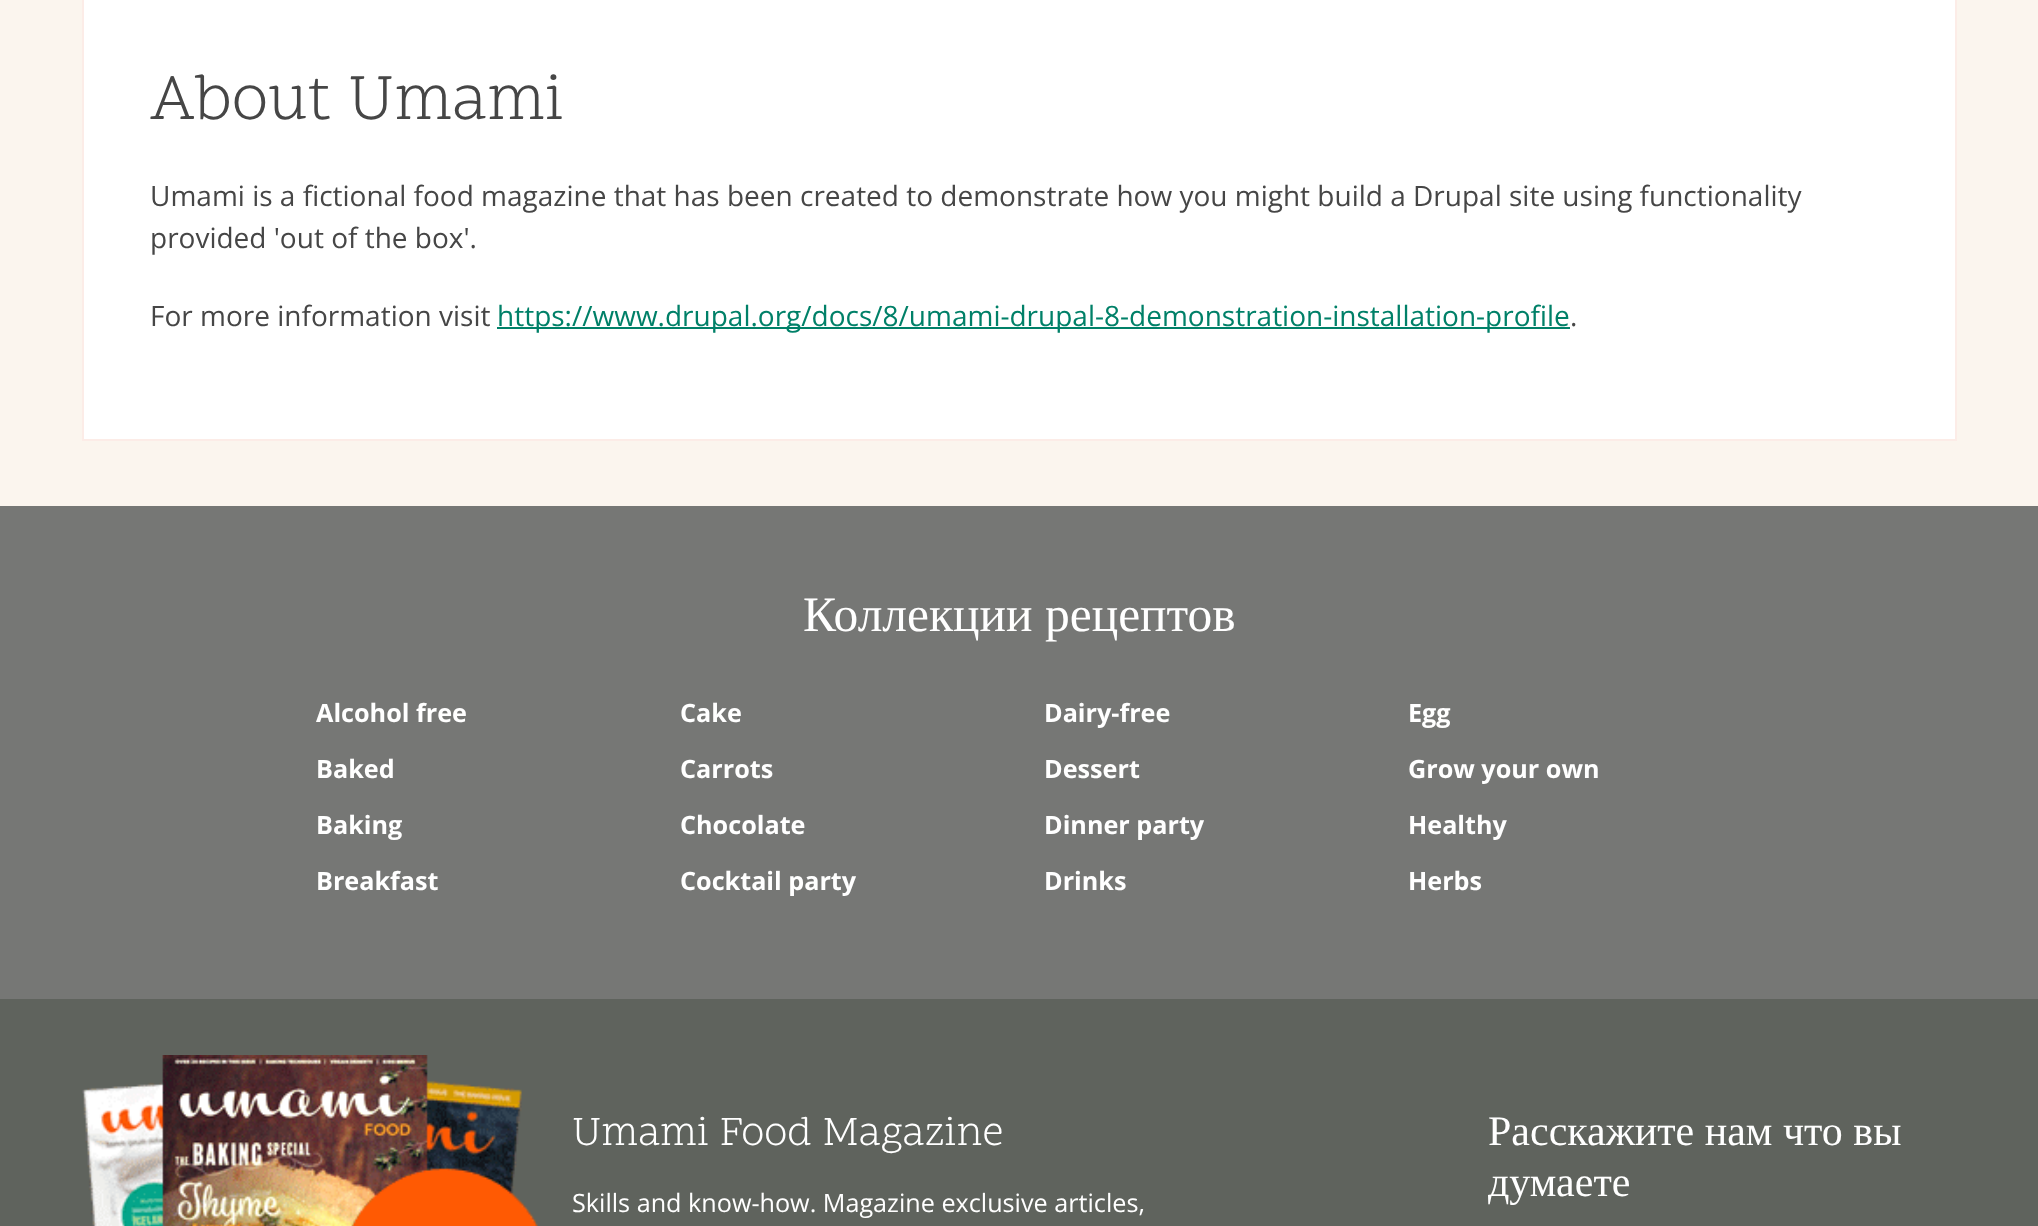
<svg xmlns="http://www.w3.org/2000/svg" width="2038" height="1226">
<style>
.a{font:66.25px Scope One;fill:#464646}
.b{font:28px Open Sans;fill:#464646}
.c{font:28px Open Sans;fill:#008068}
.d{font:49.5px Liberation Serif;fill:#fff}
.e{font:bold 25.2px Open Sans;fill:#fff}
.f{font:42px Scope One;fill:#fff}
.g{font:25.2px Open Sans;fill:#fff}
.h{font:42px Liberation Serif;fill:#fff}
</style>
<rect width="100%" height="100%" fill="#fbf5ee"/>
<path fill="#fff" stroke="#fcece7" stroke-width="2" d="M83 -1h1873v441H83z"/>
<path fill="#008068" d="M497 327h1073v2H497z"/>
<path fill="#767775" d="M0 506h2038v493H0z"/>
<path fill="#5f635d" d="M0 999h2038v227H0z"/>
<image href="1.png" x="82" y="1055" width="456" height="171"/>
<text class="a" x="150" y="119">About Umami</text>
<text class="b" x="150" y="206">Umami is a fictional food magazine that has been created to demonstrate how you might build a Drupal site using functionality</text>
<text class="b" x="150" y="248">provided 'out of the box'.</text>
<text class="b" x="150" y="326">For more information visit</text>
<text class="c" x="497" y="326">https://www.drupal.org/docs/8/umami-drupal-8-demonstration-installation-profile</text>
<text class="b" x="1570" y="326">.</text>
<text class="d" x="803" y="631">Коллекции рецептов</text>
<text class="e" x="316" y="722">Alcohol free</text>
<text class="e" x="316" y="778">Baked</text>
<text class="e" x="316" y="834">Baking</text>
<text class="e" x="316" y="890">Breakfast</text>
<text class="e" x="680" y="722">Cake</text>
<text class="e" x="680" y="778">Carrots</text>
<text class="e" x="680" y="834">Chocolate</text>
<text class="e" x="680" y="890">Cocktail party</text>
<text class="e" x="1044" y="722">Dairy-free</text>
<text class="e" x="1044" y="778">Dessert</text>
<text class="e" x="1044" y="834">Dinner party</text>
<text class="e" x="1044" y="890">Drinks</text>
<text class="e" x="1408" y="722">Egg</text>
<text class="e" x="1408" y="778">Grow your own</text>
<text class="e" x="1408" y="834">Healthy</text>
<text class="e" x="1408" y="890">Herbs</text>
<text class="f" x="572" y="1145">Umami Food Magazine</text>
<text class="g" x="572" y="1212">Skills and know-how. Magazine exclusive articles,</text>
<text class="h" x="1488" y="1145">Расскажите нам что вы</text>
<text class="h" x="1488" y="1196">думаете</text>
</svg>
